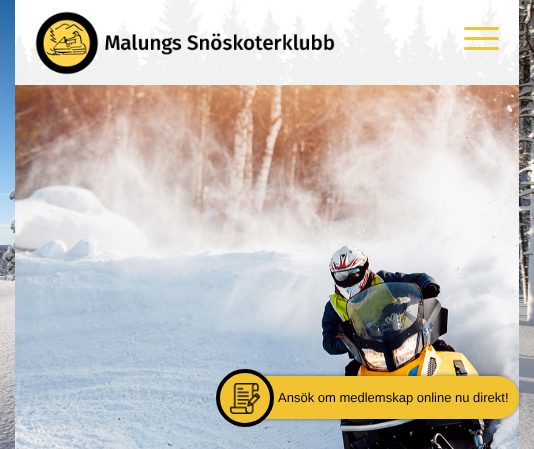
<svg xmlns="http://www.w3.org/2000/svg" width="534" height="449">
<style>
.a{font:13px Liberation Sans;fill:#000}
</style>
<rect width="100%" height="100%" fill="#fff"/>
<image href="1.png" x="0" y="0" width="534" height="449"/>
<image href="2.png" x="15" y="0" width="504" height="85"/>
<image href="3.png" x="35" y="11" width="300" height="64"/>
<rect fill="#f1c430" x="464" y="37" width="35" height="3" rx="1.5"/>
<rect fill="#f1c430" x="464" y="27" width="35" height="3" rx="1.5"/>
<rect fill="#f1c430" x="464" y="47" width="35" height="3" rx="1.5"/>
<image href="4.png" x="15" y="85" width="504" height="364"/>
<rect fill="#00000080" filter="blur(2px)" x="235" y="376" width="284" height="43" rx="21.5"/>
<rect fill="#f1c330" x="235" y="376" width="284" height="43" rx="21.5"/>
<circle fill="#f1c330" cx="245" cy="398" r="29"/>
<image href="5.png" x="230" y="383" width="30" height="31"/>
<circle fill="none" stroke="#000" stroke-width="4" cx="245" cy="398" r="27"/>
<text class="a" x="278" y="402">Ansök om medlemskap online nu direkt!</text>
</svg>
